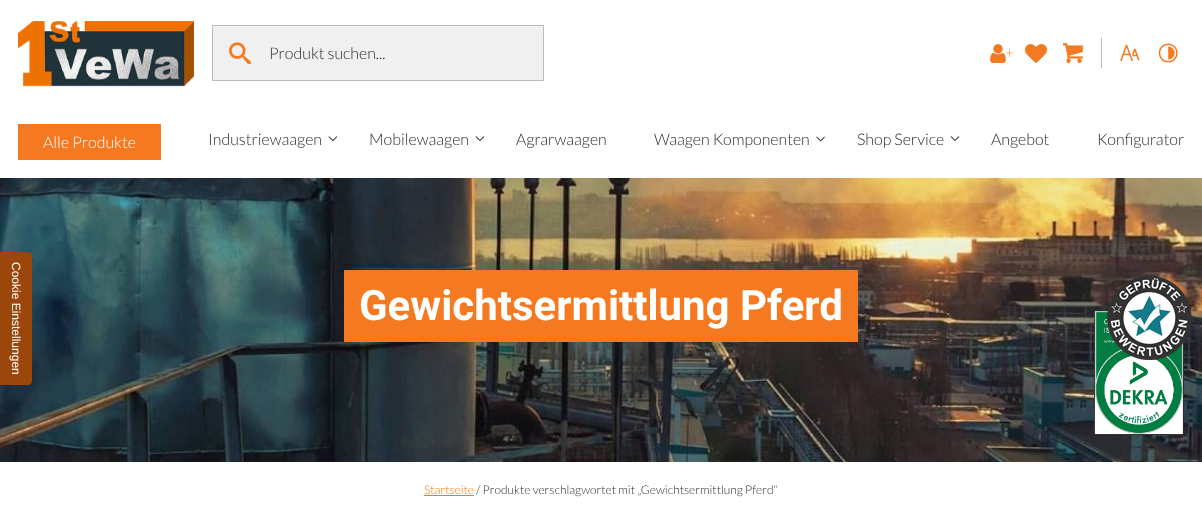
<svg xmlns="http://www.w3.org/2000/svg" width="1202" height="530">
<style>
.a{font:300 16px Lato;fill:#2d2d2d}
.b{font:300 15px Lato;fill:#f47920}
.c{font:12px Liberation Sans;fill:#fff}
.d{font:300 16px Lato;fill:#fff}
.e{font:bold 42px Roboto;fill:#fff}
.f{font:300 12px Lato;fill:#f47920}
.g{font:300 12px Lato;fill:#2d2d2d}
</style>
<rect width="100%" height="100%" fill="#fff"/>
<image href="1.png" x="18" y="21" width="176" height="66"/>
<path fill="#f0f0f0" stroke="#bbb" d="M212.5 25.5h331v55H212.5z"/>
<image href="2.png" x="229" y="42" width="22" height="22"/>
<path fill="#bbb" d="M1101 38h1v30H1101z"/>
<image href="3.png" x="990" y="44" width="16" height="19"/>
<image href="4.png" x="1025" y="44" width="22" height="19"/>
<image href="5.png" x="1063" y="43" width="20" height="20"/>
<image href="6.png" x="1120" y="45" width="20" height="16"/>
<image href="7.png" x="1158" y="43" width="20" height="20"/>
<image href="12.png" x="0" y="178" width="1202" height="284"/>
<path fill="#9b470b" d="M32 256v125c0 2-2 4-4 4h-28v-133h28c2 0 4 2 4 4z"/>
<path fill="#f47920" d="M18 124h143v36H18z"/>
<image href="8.png" x="328" y="136" width="10" height="6"/>
<image href="9.png" x="475" y="136" width="10" height="5"/>
<image href="10.png" x="816" y="136" width="9" height="6"/>
<image href="11.png" x="950" y="136" width="10" height="5"/>
<path fill="#f47920" d="M344 270h514v72H344z"/>
<path fill="none" stroke="#2d2d2d" d="M1094.5 310.5h89v124H1094.5z"/>
<image href="13.png" x="1094" y="311" width="89" height="124"/>
<path fill="#f47920" d="M424 495h50v1H424z"/>
<image href="14.png" x="1107" y="276" width="85" height="84"/>
<text class="a" x="269" y="59">Produkt suchen...</text>
<text class="b" x="1005" y="58">+</text>
<text class="c" x="12" y="262" transform="rotate(90 12 262)">Cookie Einstellungen</text>
<text class="d" x="43" y="148">Alle Produkte</text>
<text class="a" x="208" y="145">Industriewaagen</text>
<text class="a" x="369" y="145">Mobilewaagen</text>
<text class="a" x="516" y="145">Agrarwaagen</text>
<text class="a" x="654" y="145">Waagen Komponenten</text>
<text class="a" x="857" y="145">Shop Service</text>
<text class="a" x="991" y="145">Angebot</text>
<text class="a" x="1097" y="145">Konfigurator</text>
<text class="e" x="359" y="320">Gewichtsermittlung Pferd</text>
<text class="f" x="424" y="494">Startseite</text>
<text class="g" x="476" y="494">/ Produkte verschlagwortet mit „Gewichtsermittlung Pferd“</text>
</svg>
